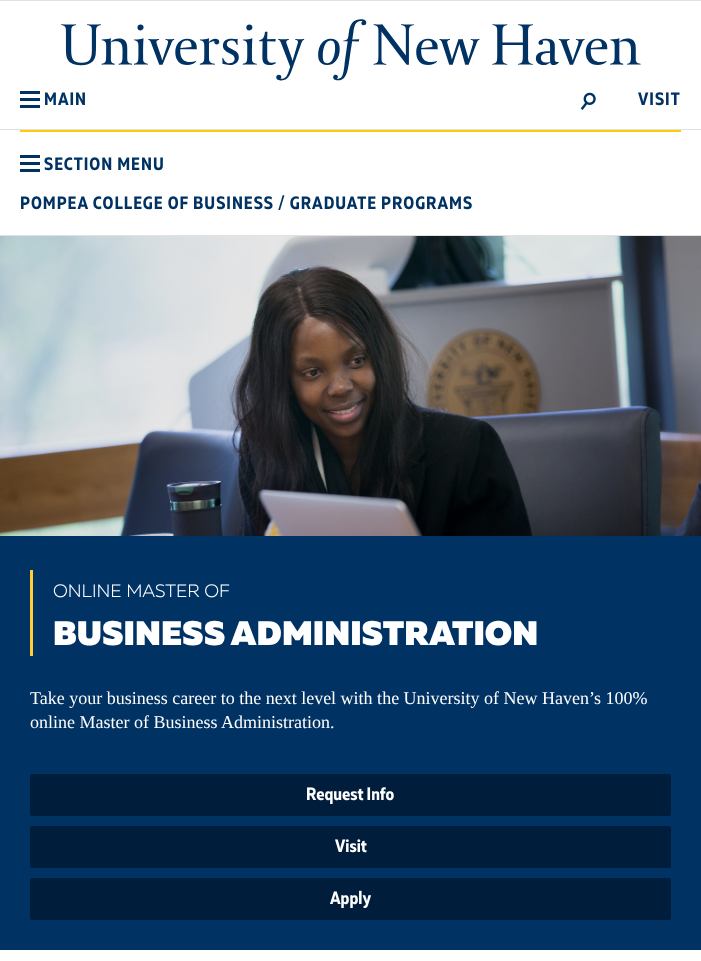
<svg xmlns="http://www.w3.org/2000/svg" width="701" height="961">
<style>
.a{font:18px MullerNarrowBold;letter-spacing:1px;fill:#003264}
.b{font:18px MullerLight;fill:#fff}
.c{font:34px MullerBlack;fill:#fff}
.d{font:18px Liberation Serif;fill:#fff}
.e{font:18px MullerNarrowBold;fill:#fff}
</style>
<rect width="100%" height="100%" fill="#fff"/>
<path fill="#e2e2e2" d="M0 0h701v1H0z"/>
<path fill="#e2e2e2" d="M0 129h701v1H0z"/>
<image href="1.png" x="61" y="19" width="580" height="62"/>
<path fill="#003264" d="M20 98h20v3H20z"/>
<path fill="#003264" d="M20 91h20v3H20z"/>
<path fill="#003264" d="M20 105h20v3H20z"/>
<image href="2.png" x="580" y="92" width="16" height="18"/>
<path fill="#e2e2e2" d="M0 235h701v1H0z"/>
<path fill="#ffcb04" d="M20 130h661v2H20z"/>
<path fill="#003264" d="M20 162h20v3H20z"/>
<path fill="#003264" d="M20 155h20v3H20z"/>
<path fill="#003264" d="M20 169h20v3H20z"/>
<image href="3.png" x="0" y="236" width="701" height="300"/>
<path fill="#003264" d="M0 536h701v414H0z"/>
<path fill="#fc3" d="M30 570h3v86H30z"/>
<rect fill="#001d3b" x="30" y="774" width="641" height="42" rx="2.5"/>
<rect fill="#001d3b" x="30" y="826" width="641" height="42" rx="2.5"/>
<rect fill="#001d3b" x="30" y="878" width="641" height="42" rx="2.5"/>
<text class="a" x="44" y="105">MAIN</text>
<text class="a" x="638" y="105">VISIT</text>
<text class="a" x="44" y="170">SECTION MENU</text>
<text class="a" x="20" y="209">POMPEA COLLEGE OF BUSINESS / GRADUATE PROGRAMS</text>
<text class="b" x="53" y="597">ONLINE MASTER OF</text>
<text class="c" x="53" y="645">BUSINESS ADMINISTRATION</text>
<text class="d" x="30" y="704">Take your business career to the next level with the University of New Haven’s 100%</text>
<text class="d" x="30" y="728">online Master of Business Administration.</text>
<text class="e" x="306" y="800">Request Info</text>
<text class="e" x="335" y="852">Visit</text>
<text class="e" x="330" y="904">Apply</text>
</svg>
